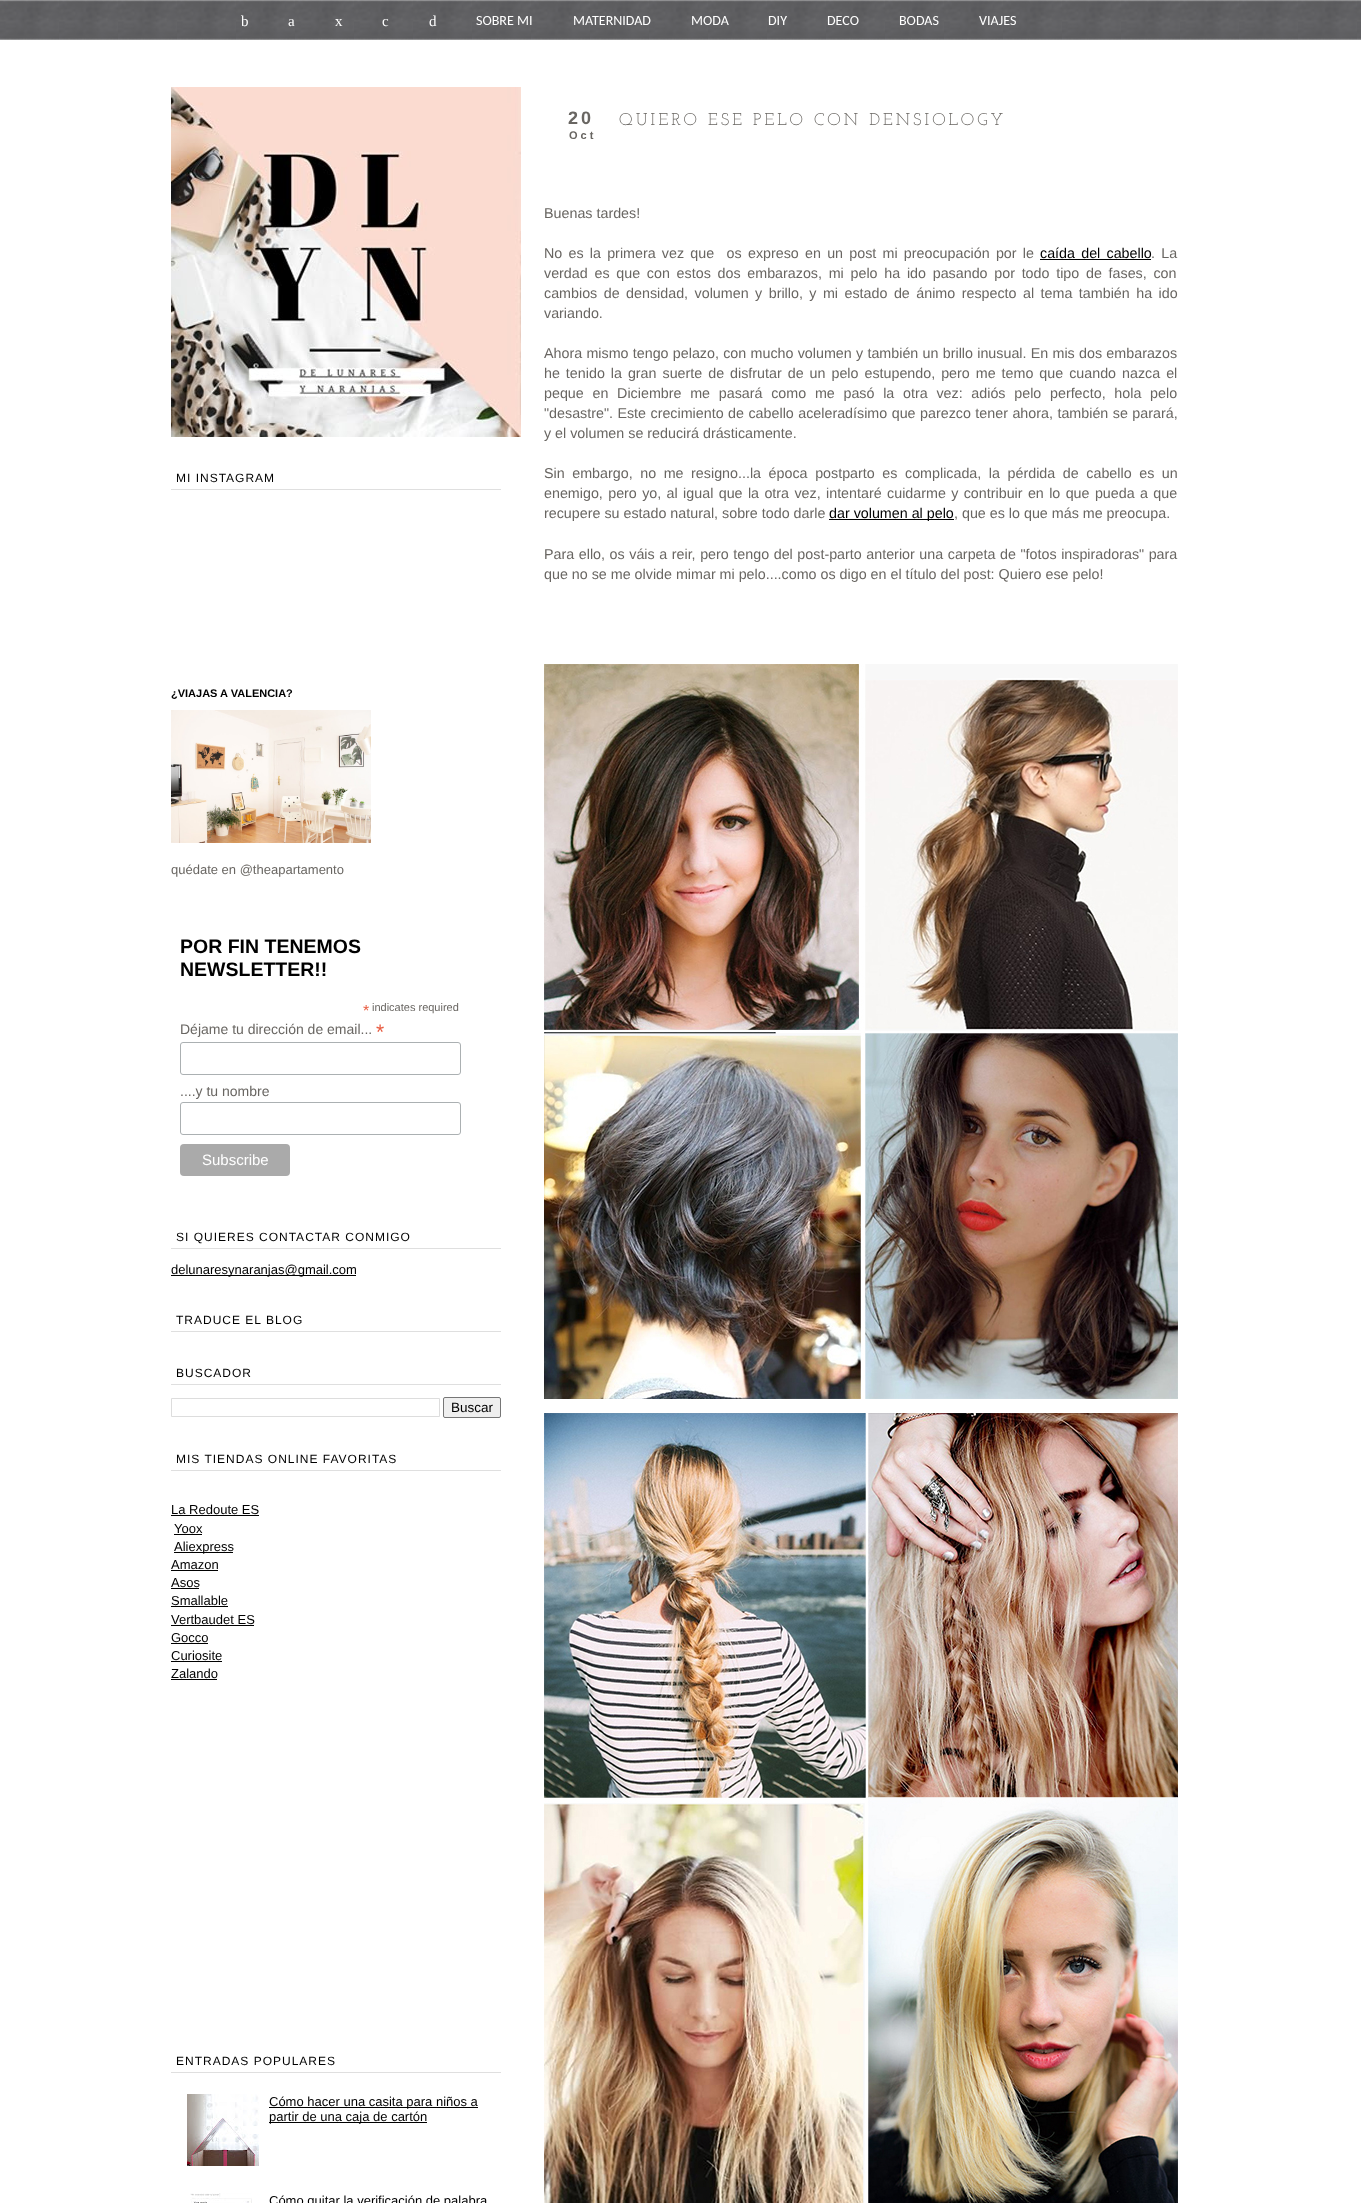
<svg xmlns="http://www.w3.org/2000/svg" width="1361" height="2203">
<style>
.a{font:15px Liberation Serif;fill:#fff}
.b{font:14px Carlito;fill:#fff}
.c{font:bold 18px Liberation Sans;letter-spacing:3px;fill:#696662}
.d{font:bold 11px Liberation Sans;letter-spacing:3px;fill:#696662}
.e{font:17px Josefin Slab;letter-spacing:3px;fill:#696662}
.f{font:14.3px Liberation Sans;fill:#696662}
.g{font:14.3px Liberation Sans;fill:#000}
.h{font:12px Liberation Sans;letter-spacing:1px;fill:#000}
.i{font:bold 11px Liberation Sans;fill:#000}
.j{font:13px Liberation Sans;fill:#696662}
.k{font:bold 19.5px Liberation Sans;fill:#000}
.l{font:16px Liberation Sans;fill:#e85c41}
.m{font:11px Liberation Sans;fill:#696662}
.n{font:14px Liberation Sans;fill:#696662}
.o{font:21px Liberation Sans;fill:#e85c41}
.p{font:15px Liberation Sans;fill:#fff}
.q{font:13px Liberation Sans;fill:#000}
.r{font:13.5px Liberation Sans;fill:#000}
</style>
<rect width="100%" height="100%" fill="#fff"/>
<image href="1.png" x="0" y="0" width="1361" height="40"/>
<path fill="#000" d="M1040 259h111v1H1040z"/>
<path fill="#000" d="M829 519h125v1H829z"/>
<image href="2.png" x="544" y="664" width="634" height="735"/>
<image href="3.png" x="544" y="1413" width="634" height="790"/>
<image href="4.png" x="171" y="87" width="350" height="350"/>
<path fill="#dfdfdf" d="M171 489h330v1H171z"/>
<image href="5.png" x="171" y="710" width="200" height="133"/>
<rect fill="none" stroke="#abb0b2" x="180.5" y="1042.5" width="280" height="32" rx="2.5"/>
<rect fill="none" stroke="#abb0b2" x="180.5" y="1102.5" width="280" height="32" rx="2.5"/>
<rect fill="#aaa" x="180" y="1144" width="110" height="32" rx="4"/>
<path fill="#dfdfdf" d="M171 1248h330v1H171z"/>
<path fill="#000" d="M171 1275h185v1H171z"/>
<path fill="#dfdfdf" d="M171 1331h330v1H171z"/>
<path fill="#dfdfdf" d="M171 1384h330v1H171z"/>
<path fill="none" stroke="#ddd" d="M171.5 1398.5h268v18H171.5z"/>
<rect fill="#efefef" stroke="#767676" x="443.5" y="1397.5" width="57" height="20" rx="1.5"/>
<path fill="#dfdfdf" d="M171 1470h330v1H171z"/>
<path fill="#000" d="M171 1515h88v1H171z"/>
<path fill="#000" d="M174 1534h28v1H174z"/>
<path fill="#000" d="M174 1552h59v1H174z"/>
<path fill="#000" d="M171 1570h47v1H171z"/>
<path fill="#000" d="M171 1588h28v1H171z"/>
<path fill="#000" d="M171 1606h57v1H171z"/>
<path fill="#000" d="M171 1625h83v1H171z"/>
<path fill="#000" d="M171 1643h37v1H171z"/>
<path fill="#000" d="M171 1661h51v1H171z"/>
<path fill="#000" d="M171 1679h46v1H171z"/>
<path fill="#dfdfdf" d="M171 2072h330v1H171z"/>
<image href="6.png" x="187" y="2094" width="72" height="72"/>
<path fill="#000" d="M269 2107h209v1H269z"/>
<path fill="#000" d="M269 2122h158v1H269z"/>
<image href="7.png" x="190" y="2193" width="62" height="10"/>
<text class="a" x="241" y="26">b</text>
<text class="a" x="288" y="26">a</text>
<text class="a" x="335" y="26">x</text>
<text class="a" x="382" y="26">c</text>
<text class="a" x="429" y="26">d</text>
<text class="b" x="476" y="25">SOBRE MI</text>
<text class="b" x="573" y="25">MATERNIDAD</text>
<text class="b" x="691" y="25">MODA</text>
<text class="b" x="768" y="25">DIY</text>
<text class="b" x="827" y="25">DECO</text>
<text class="b" x="899" y="25">BODAS</text>
<text class="b" x="979" y="25">VIAJES</text>
<text class="c" x="568" y="124">20</text>
<text class="d" x="569" y="139">Oct</text>
<text class="e" x="619" y="125">QUIERO ESE PELO CON DENSIOLOGY</text>
<text class="f" x="544" y="218">Buenas tardes!</text>
<text class="f" xml:space="preserve" x="544" y="258" word-spacing="2.25">No es la primera vez que  os expreso en un post mi preocupación por le</text>
<text class="g" x="1040" y="258" word-spacing="2.25">caída del cabello</text>
<text class="f" x="1151" y="258" word-spacing="2.25">. La</text>
<text class="f" x="544" y="278" word-spacing="2.75">verdad es que con estos dos embarazos, mi pelo ha ido pasando por todo tipo de fases, con</text>
<text class="f" x="544" y="298" word-spacing="2.5">cambios de densidad, volumen y brillo, y mi estado de ánimo respecto al tema también ha ido</text>
<text class="f" x="544" y="318">variando.</text>
<text class="f" x="544" y="358" word-spacing="0.3">Ahora mismo tengo pelazo, con mucho volumen y también un brillo inusual. En mis dos embarazos</text>
<text class="f" x="544" y="378" word-spacing="2">he tenido la gran suerte de disfrutar de un pelo estupendo, pero me temo que cuando nazca el</text>
<text class="f" x="544" y="398" word-spacing="4.75">peque en Diciembre me pasará como me pasó la otra vez: adiós pelo perfecto, hola pelo</text>
<text class="f" x="544" y="418" word-spacing="0.5">"desastre". Este crecimiento de cabello aceleradísimo que parezco tener ahora, también se parará,</text>
<text class="f" x="544" y="438">y el volumen se reducirá drásticamente.</text>
<text class="f" x="544" y="478" word-spacing="3.6">Sin embargo, no me resigno...la época postparto es complicada, la pérdida de cabello es un</text>
<text class="f" x="544" y="498" word-spacing="1.4">enemigo, pero yo, al igual que la otra vez, intentaré cuidarme y contribuir en lo que pueda a que</text>
<text class="f" x="544" y="518">recupere su estado natural, sobre todo darle</text>
<text class="g" x="829" y="518">dar volumen al pelo</text>
<text class="f" x="954" y="518">, que es lo que más me preocupa.</text>
<text class="f" x="544" y="559" word-spacing="0.6">Para ello, os váis a reir, pero tengo del post-parto anterior una carpeta de "fotos inspiradoras" para</text>
<text class="f" x="544" y="579">que no se me olvide mimar mi pelo....como os digo en el título del post: Quiero ese pelo!</text>
<text class="h" x="176" y="482">MI INSTAGRAM</text>
<text class="i" x="171" y="697">¿VIAJAS A VALENCIA?</text>
<text class="j" x="171" y="874">quédate en @theapartamento</text>
<text class="k" x="180" y="953">POR FIN TENEMOS</text>
<text class="k" x="180" y="976">NEWSLETTER!!</text>
<text class="l" x="363" y="1016">*</text>
<text class="m" x="372" y="1011">indicates required</text>
<text class="n" x="180" y="1034">Déjame tu dirección de email...</text>
<text class="o" x="376" y="1039">*</text>
<text class="n" x="180" y="1096">....y tu nombre</text>
<text class="p" x="202" y="1165">Subscribe</text>
<text class="h" x="176" y="1241">SI QUIERES CONTACTAR CONMIGO</text>
<text class="q" x="171" y="1274">delunaresynaranjas@gmail.com</text>
<text class="h" x="176" y="1324">TRADUCE EL BLOG</text>
<text class="h" x="176" y="1377">BUSCADOR</text>
<text class="r" x="451" y="1412">Buscar</text>
<text class="h" x="176" y="1463">MIS TIENDAS ONLINE FAVORITAS</text>
<text class="q" x="171" y="1514">La Redoute ES</text>
<text class="q" x="174" y="1533">Yoox</text>
<text class="q" x="174" y="1551">Aliexpress</text>
<text class="q" x="171" y="1569">Amazon</text>
<text class="q" x="171" y="1587">Asos</text>
<text class="q" x="171" y="1605">Smallable</text>
<text class="q" x="171" y="1624">Vertbaudet ES</text>
<text class="q" x="171" y="1642">Gocco</text>
<text class="q" x="171" y="1660">Curiosite</text>
<text class="q" x="171" y="1678">Zalando</text>
<text class="h" x="176" y="2065">ENTRADAS POPULARES</text>
<text class="q" x="269" y="2106">Cómo hacer una casita para niños a</text>
<text class="q" x="269" y="2121">partir de una caja de cartón</text>
<text class="q" x="269" y="2205">Cómo quitar la verificación de palabra</text>
</svg>
